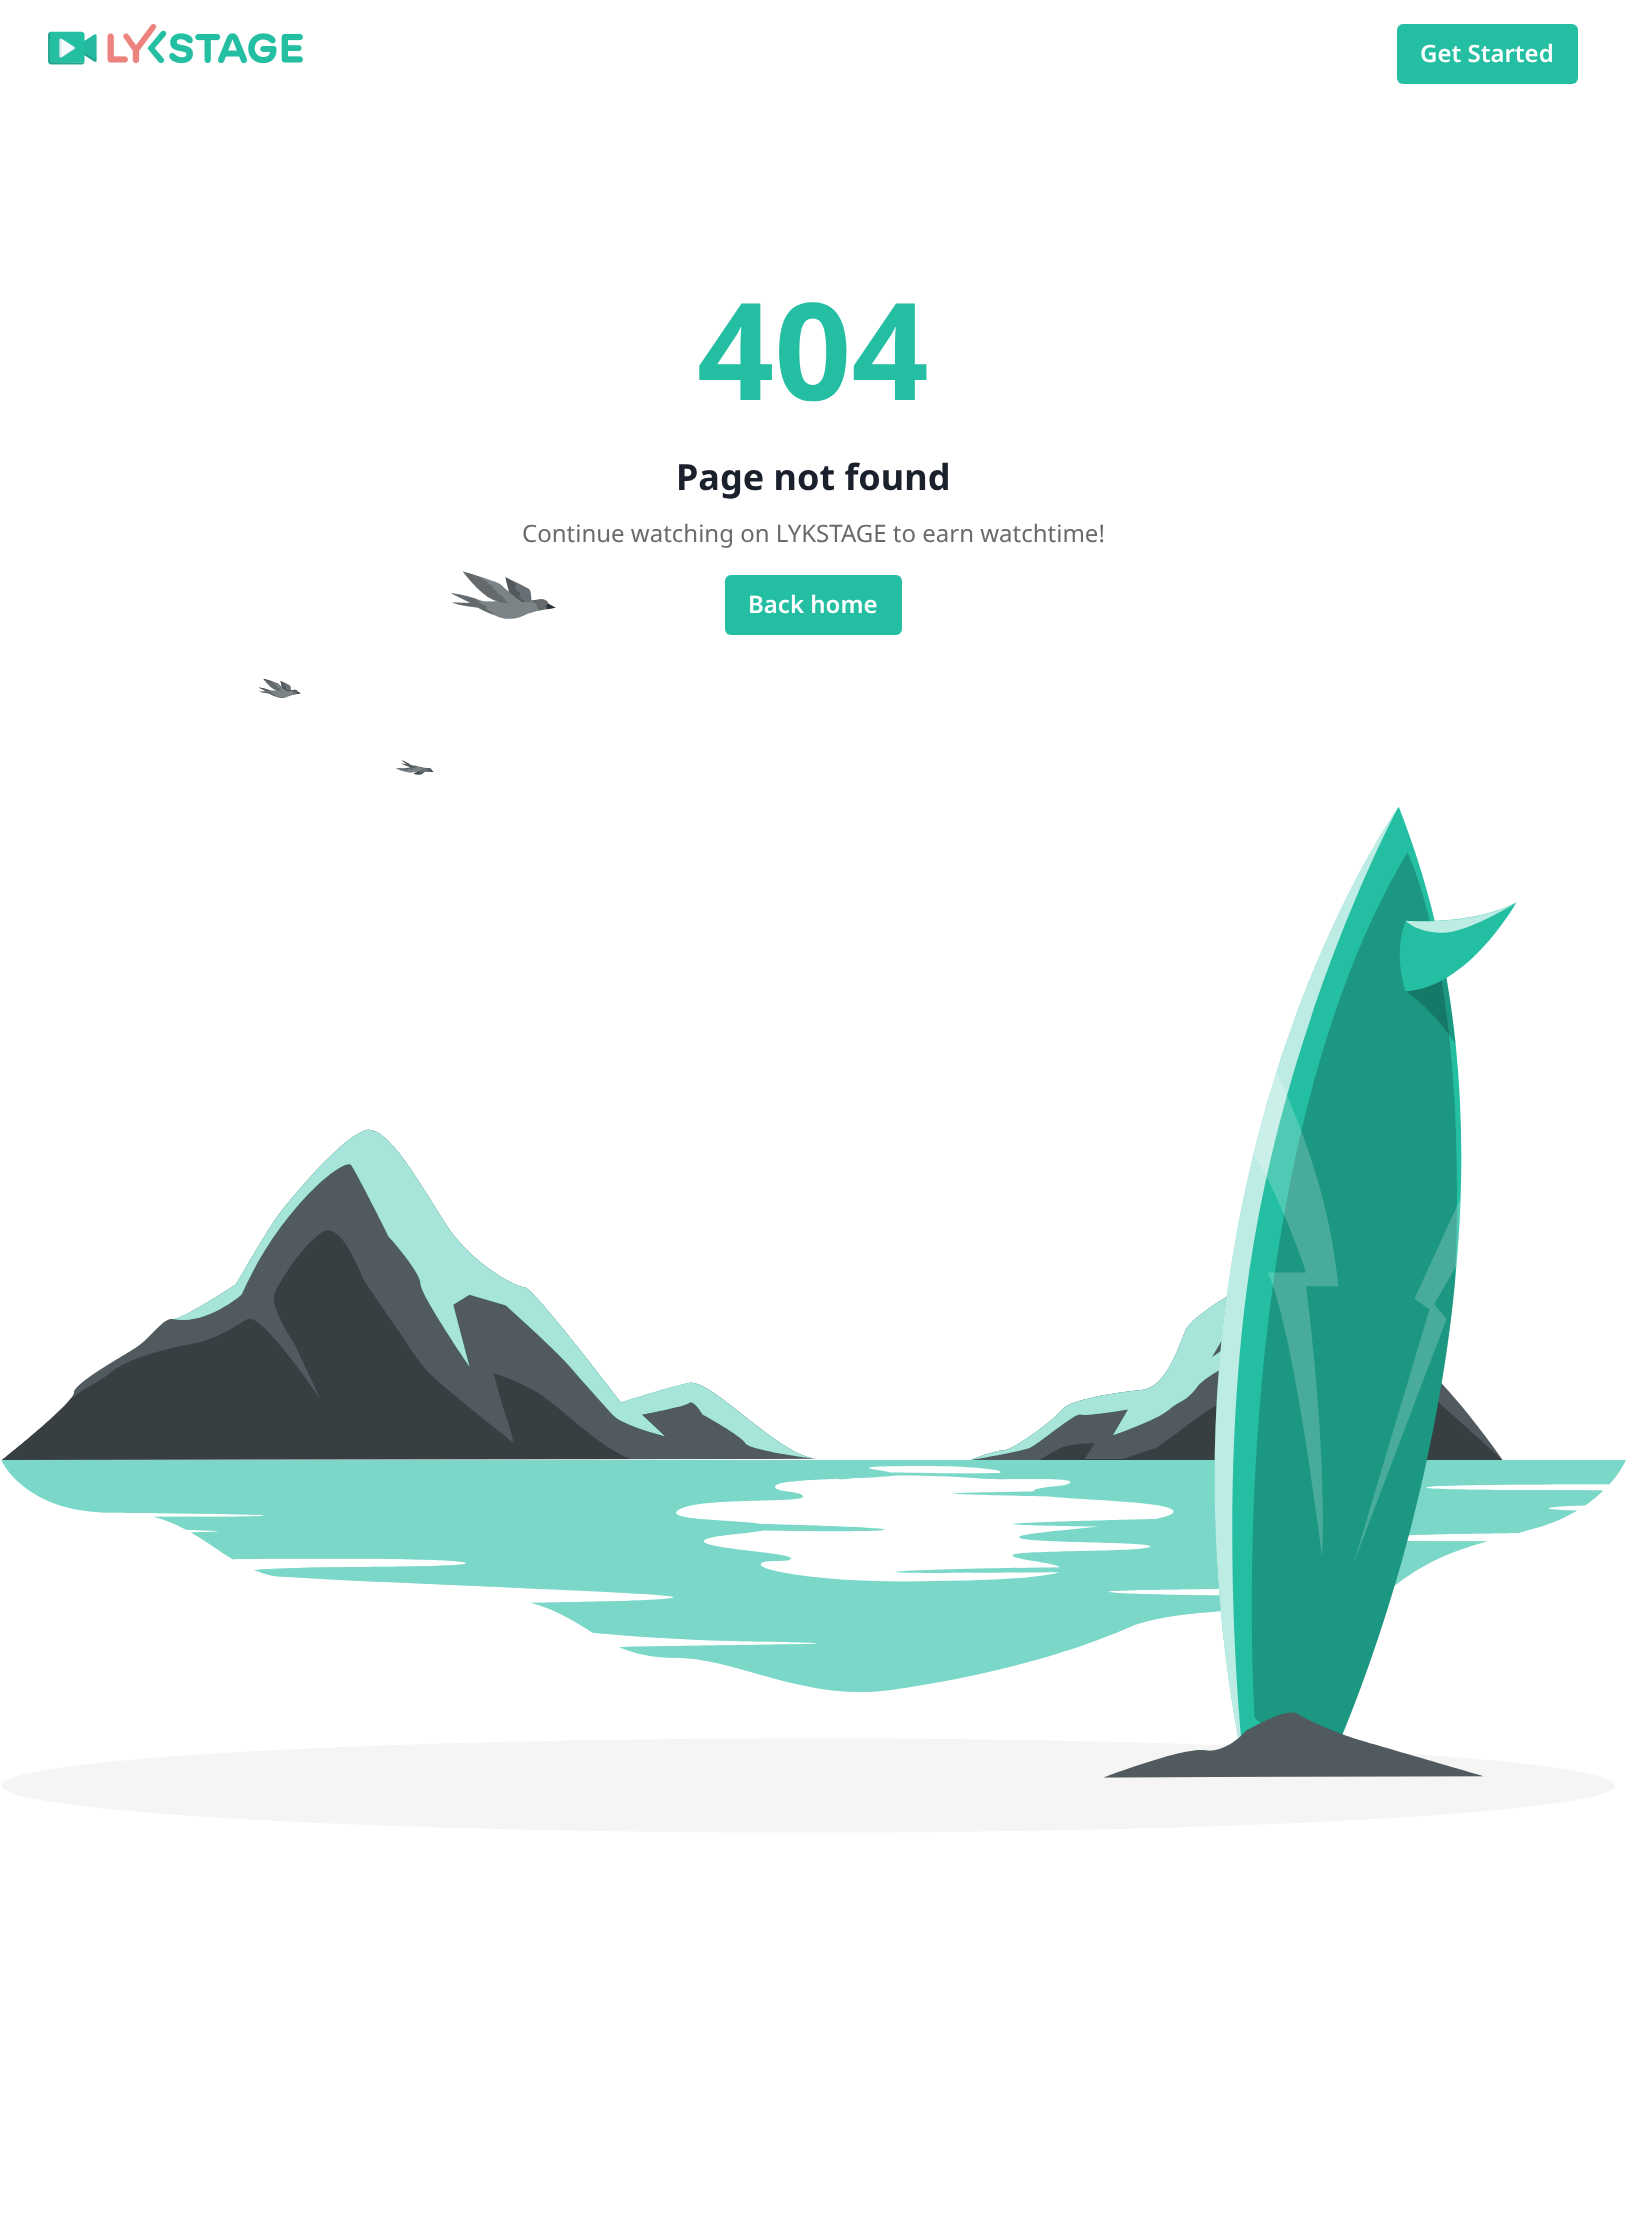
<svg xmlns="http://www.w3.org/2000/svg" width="1626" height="2234">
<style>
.a{font:600 24px Noto Sans;fill:#fff}
.b{font:bold 135px Noto Sans;fill:#24bfa3}
.c{font:bold 36px Noto Sans;fill:#1a202c}
.d{font:24px Noto Sans;fill:#6a6a6a}
</style>
<rect width="100%" height="100%" fill="#fff"/>
<image href="1.png" x="48" y="24" width="255" height="41"/>
<rect fill="#24bfa3" x="1397" y="24" width="181" height="60" rx="6"/>
<image href="2.png" x="1" y="571" width="1625" height="1262"/>
<rect fill="#24bfa3" x="725" y="575" width="177" height="60" rx="6"/>
<text class="a" x="1420" y="62">Get Started</text>
<text class="b" x="697" y="400">404</text>
<text class="c" x="676" y="490">Page not found</text>
<text class="d" x="522" y="542">Continue watching on LYKSTAGE to earn watchtime!</text>
<text class="a" x="748" y="613">Back home</text>
</svg>
